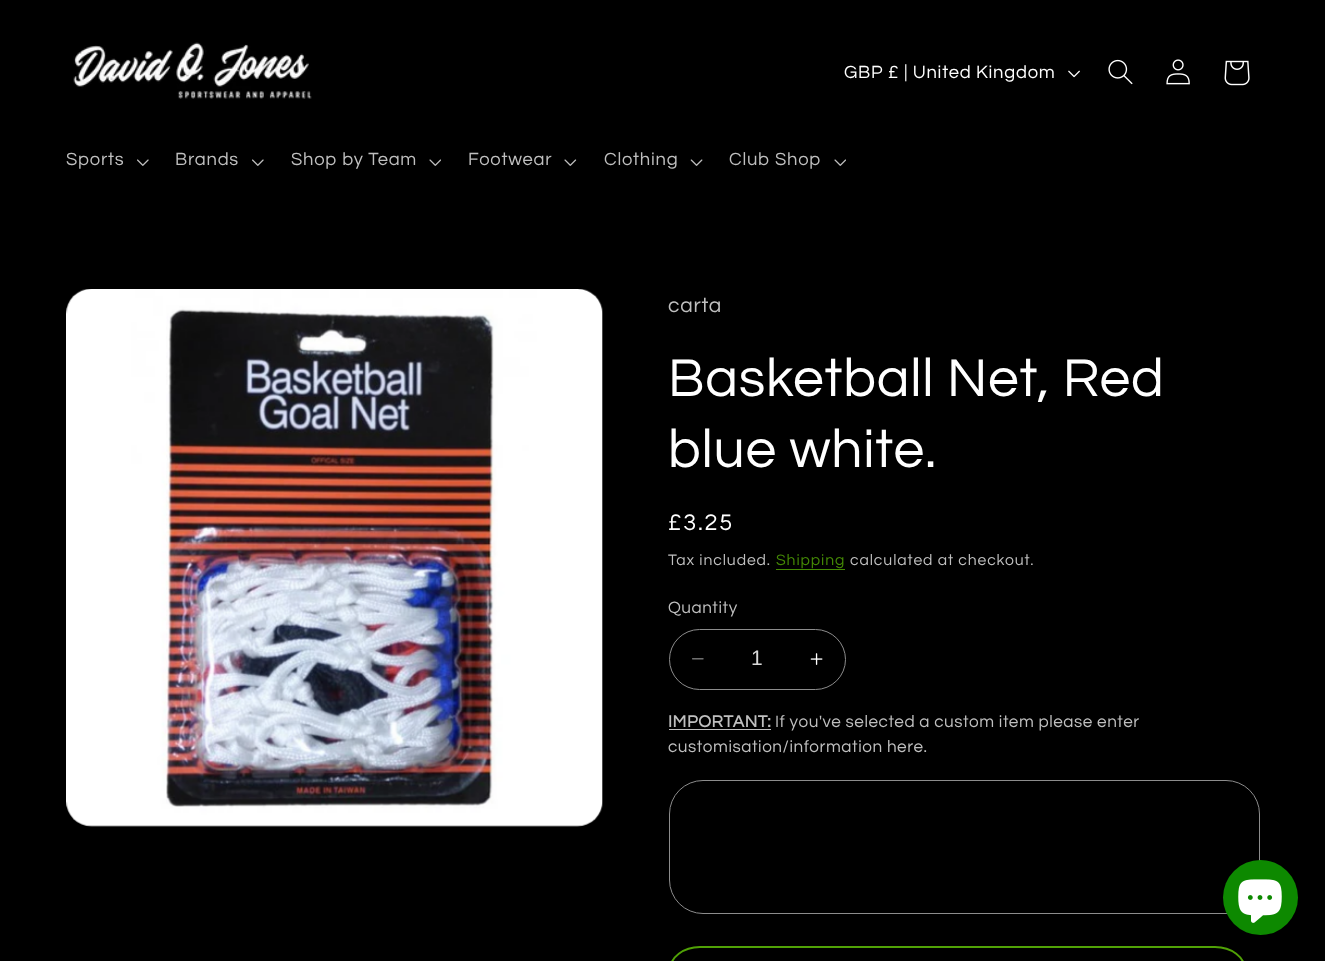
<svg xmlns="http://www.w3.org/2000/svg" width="1325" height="961">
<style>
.a{font:18.4px Questrial;letter-spacing:0.75px;fill:#fff}
.b{font:18.4px Questrial;letter-spacing:0.75px;fill:#bfbfbf}
.c{font:21px Questrial;letter-spacing:0.75px;fill:#bfbfbf}
.d{font:55px Questrial;letter-spacing:0.8px;fill:#fff}
.e{font:23.5px Questrial;letter-spacing:1.75px;fill:#fff}
.f{font:15.75px Questrial;letter-spacing:0.9px;fill:#bfbfbf}
.g{font:15.75px Questrial;letter-spacing:0.9px;fill:#448905}
.h{font:17.1px Questrial;letter-spacing:0.55px;fill:#bfbfbf}
.i{font:21px Liberation Sans;fill:#d9d9d9}
.j{font:bold 17.1px Questrial;letter-spacing:0.55px;fill:#bfbfbf}
</style>
<rect width="100%" height="100%" fill="#000"/>
<image href="1.png" x="73" y="42" width="239" height="57"/>
<image href="2.png" x="1068" y="70" width="12" height="8"/>
<image href="3.png" x="1108" y="59" width="25" height="26"/>
<image href="4.png" x="1166" y="59" width="24" height="26"/>
<image href="5.png" x="1224" y="60" width="26" height="26"/>
<image href="6.png" x="137" y="159" width="12" height="7"/>
<image href="6.png" x="252" y="159" width="12" height="7"/>
<image href="7.png" x="429" y="159" width="12" height="7"/>
<image href="8.png" x="564" y="159" width="13" height="7"/>
<image href="9.png" x="690" y="159" width="13" height="7"/>
<image href="7.png" x="834" y="159" width="12" height="7"/>
<image href="10.png" x="66" y="289" width="537" height="538"/>
<path fill="#448905" d="M776 569h69v1H776z"/>
<image href="11.png" x="692" y="658" width="12" height="2"/>
<image href="12.png" x="810" y="653" width="13" height="12"/>
<rect fill="none" stroke="#8c8c8c" x="669.5" y="629.5" width="176" height="60" rx="30"/>
<path fill="#bfbfbf" d="M669 729h102v1H669z"/>
<rect fill="none" stroke="#8c8c8c" x="669.5" y="780.5" width="590" height="133" rx="33.5"/>
<rect fill="none" stroke="#50a106" stroke-width="2" x="670" y="947" width="575" height="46" rx="30"/>
<circle fill="#0d8900" cx="1260.5" cy="897.5" r="37.5"/>
<image href="13.png" x="1238" y="879" width="44" height="44"/>
<text class="a" x="844" y="78">GBP £ | United Kingdom</text>
<text class="b" x="66" y="165">Sports</text>
<text class="b" x="175" y="165">Brands</text>
<text class="b" x="291" y="165">Shop by Team</text>
<text class="b" x="468" y="165">Footwear</text>
<text class="b" x="604" y="165">Clothing</text>
<text class="b" x="729" y="165">Club Shop</text>
<text class="c" x="668" y="312">carta</text>
<text class="d" x="668" y="396">Basketball Net, Red</text>
<text class="d" x="668" y="467">blue white.</text>
<text class="e" x="668" y="530">£3.25</text>
<text class="f" x="668" y="565">Tax included.</text>
<text class="g" x="776" y="565">Shipping</text>
<text class="f" x="850" y="565">calculated at checkout.</text>
<text class="h" x="668" y="613">Quantity</text>
<text class="i" x="751" y="665">1</text>
<text class="j" x="668" y="727">IMPORTANT:</text>
<text class="h" x="775" y="727">If you've selected a custom item please enter</text>
<text class="h" x="668" y="752">customisation/information here.</text>
</svg>
